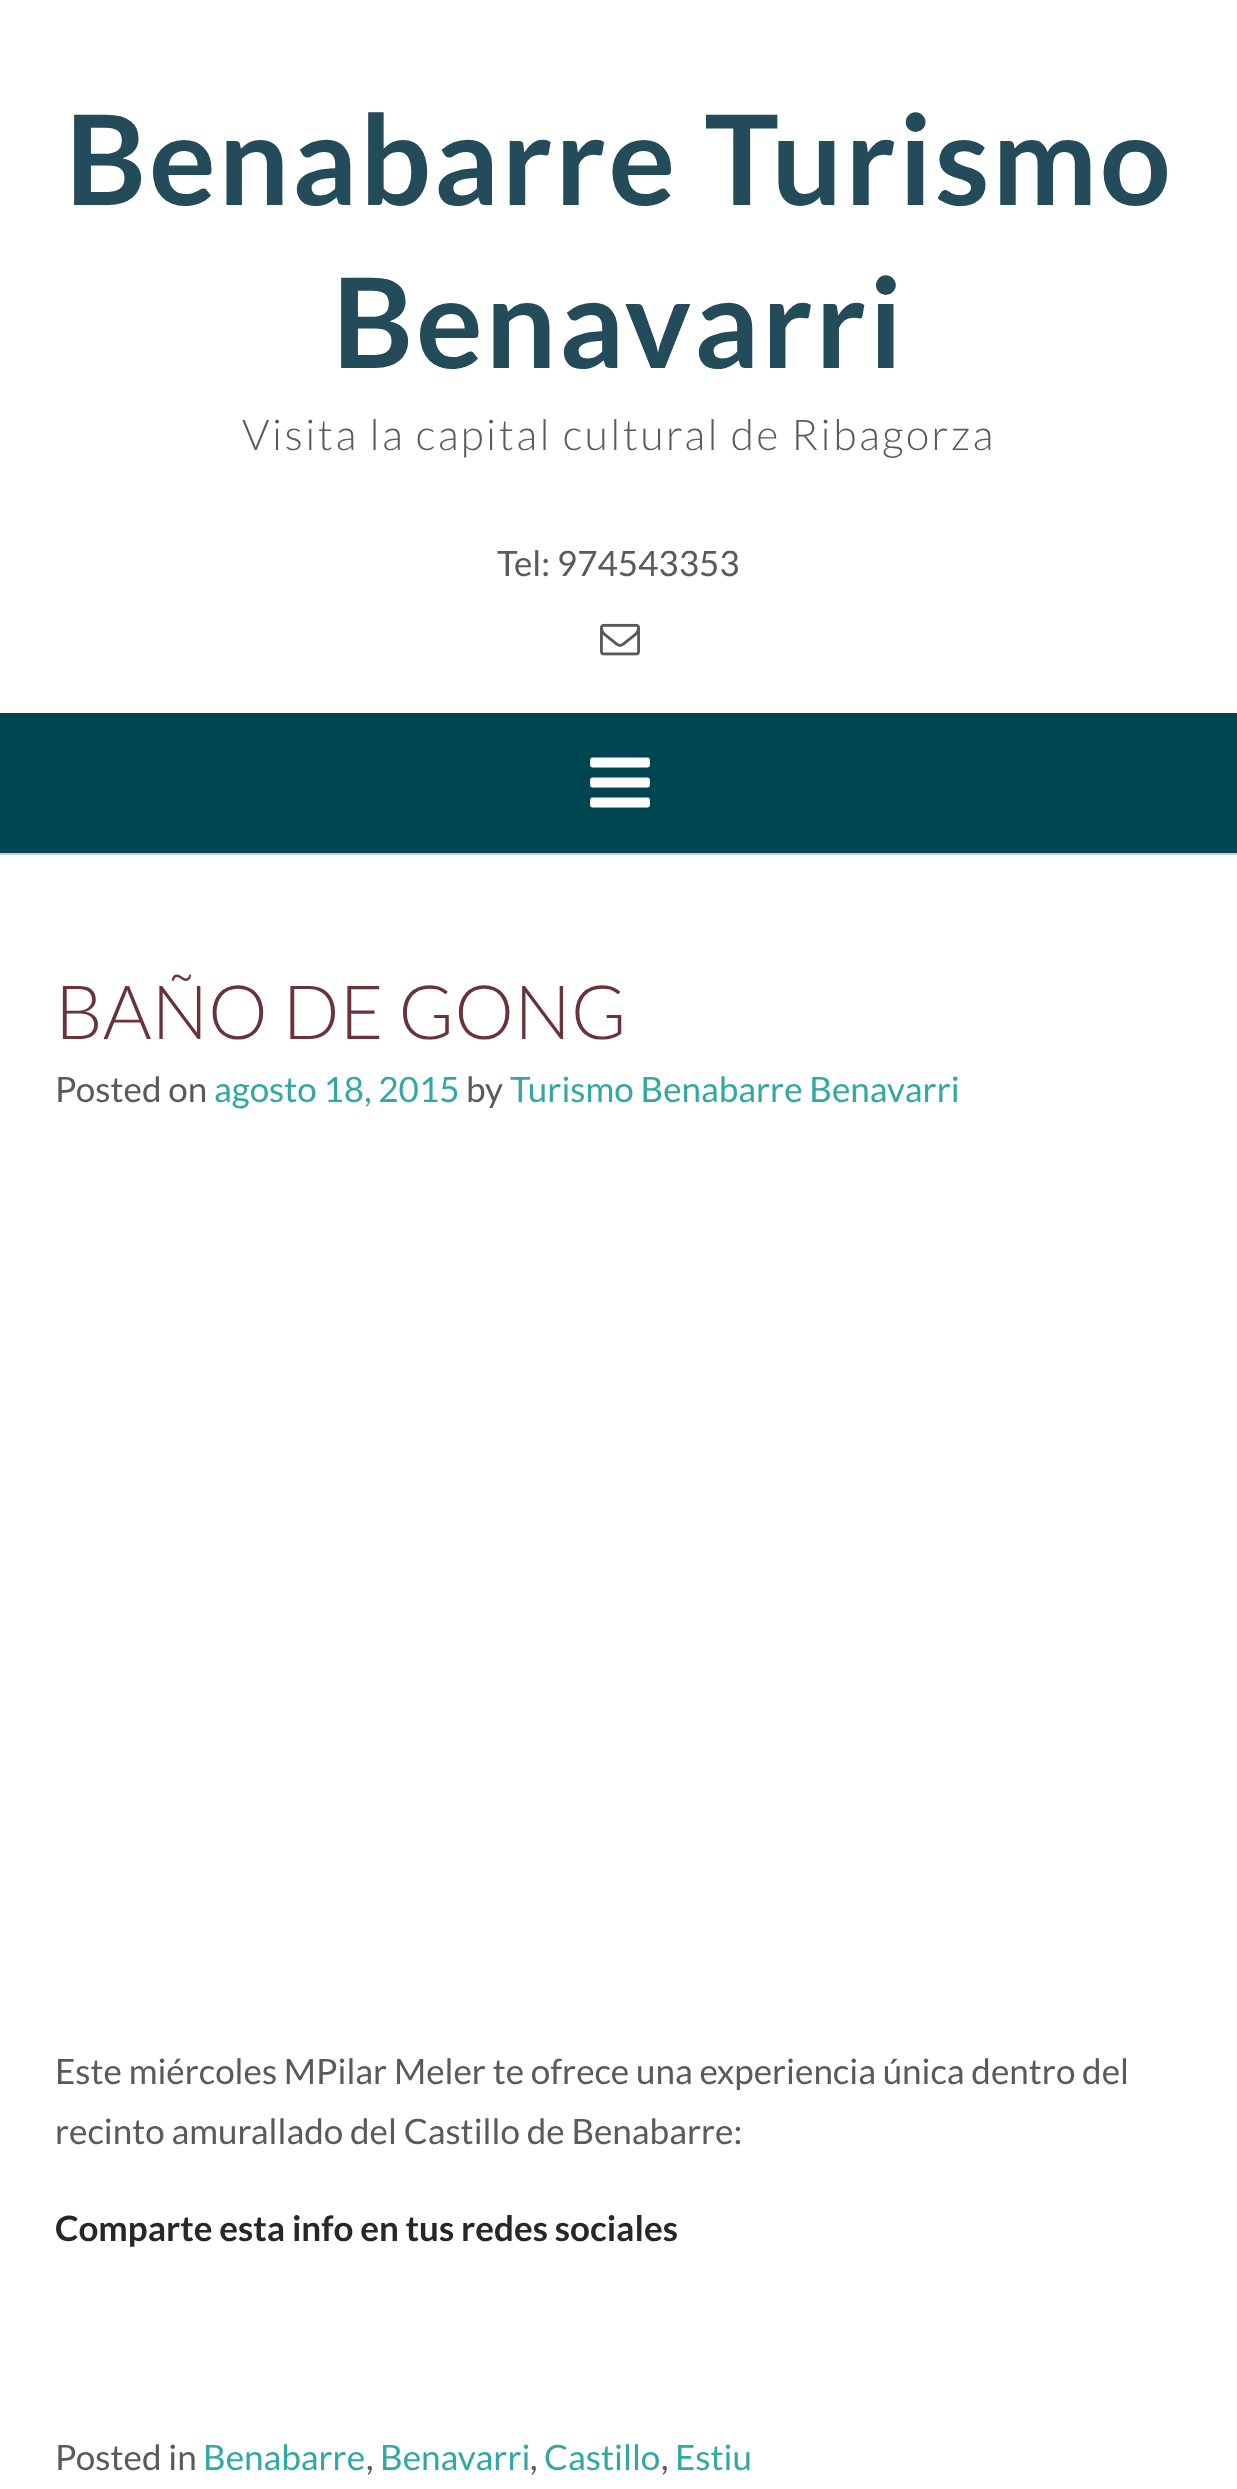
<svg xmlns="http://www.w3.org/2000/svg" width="1237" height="2489">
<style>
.a{font:bold 125px Lato;letter-spacing:2.5px;fill:#234b59}
.b{font:300 42.5px Lato;letter-spacing:2.5px;fill:#5a5a5a}
.c{font:35px Lato;fill:#5a5a5a}
.d{font:300 75px Lato;fill:#6a333a}
.e{font:35px Lato;fill:#33a7a4}
.f{font:bold 35px Lato;fill:#272727}
</style>
<rect width="100%" height="100%" fill="#fff"/>
<image href="1.png" x="600" y="623" width="40" height="33"/>
<path fill="#004652" d="M0 713h1237v140H0z"/>
<path fill="#cacfd0" d="M0 853h1237v2H0z"/>
<image href="2.png" x="590" y="757" width="60" height="51"/>
<text class="a" x="65" y="205">Benabarre Turismo</text>
<text class="a" x="332" y="368">Benavarri</text>
<text class="b" x="242" y="450">Visita la capital cultural de Ribagorza</text>
<text class="c" x="497" y="576">Tel: 974543353</text>
<text class="d" x="55" y="1039">BAÑO DE GONG</text>
<text class="c" x="55" y="1102">Posted on</text>
<text class="e" x="214" y="1102">agosto 18, 2015</text>
<text class="c" x="466" y="1102">by</text>
<text class="e" x="510" y="1102">Turismo Benabarre Benavarri</text>
<text class="c" x="55" y="2084">Este miércoles MPilar Meler te ofrece una experiencia única dentro del</text>
<text class="c" x="55" y="2144">recinto amurallado del Castillo de Benabarre:</text>
<text class="f" x="55" y="2241">Comparte esta info en tus redes sociales</text>
<text class="c" x="55" y="2470">Posted in</text>
<text class="e" x="203" y="2470">Benabarre</text>
<text class="c" x="366" y="2470">,</text>
<text class="e" x="380" y="2470">Benavarri</text>
<text class="c" x="530" y="2470">,</text>
<text class="e" x="544" y="2470">Castillo</text>
<text class="c" x="661" y="2470">,</text>
<text class="e" x="675" y="2470">Estiu</text>
</svg>
